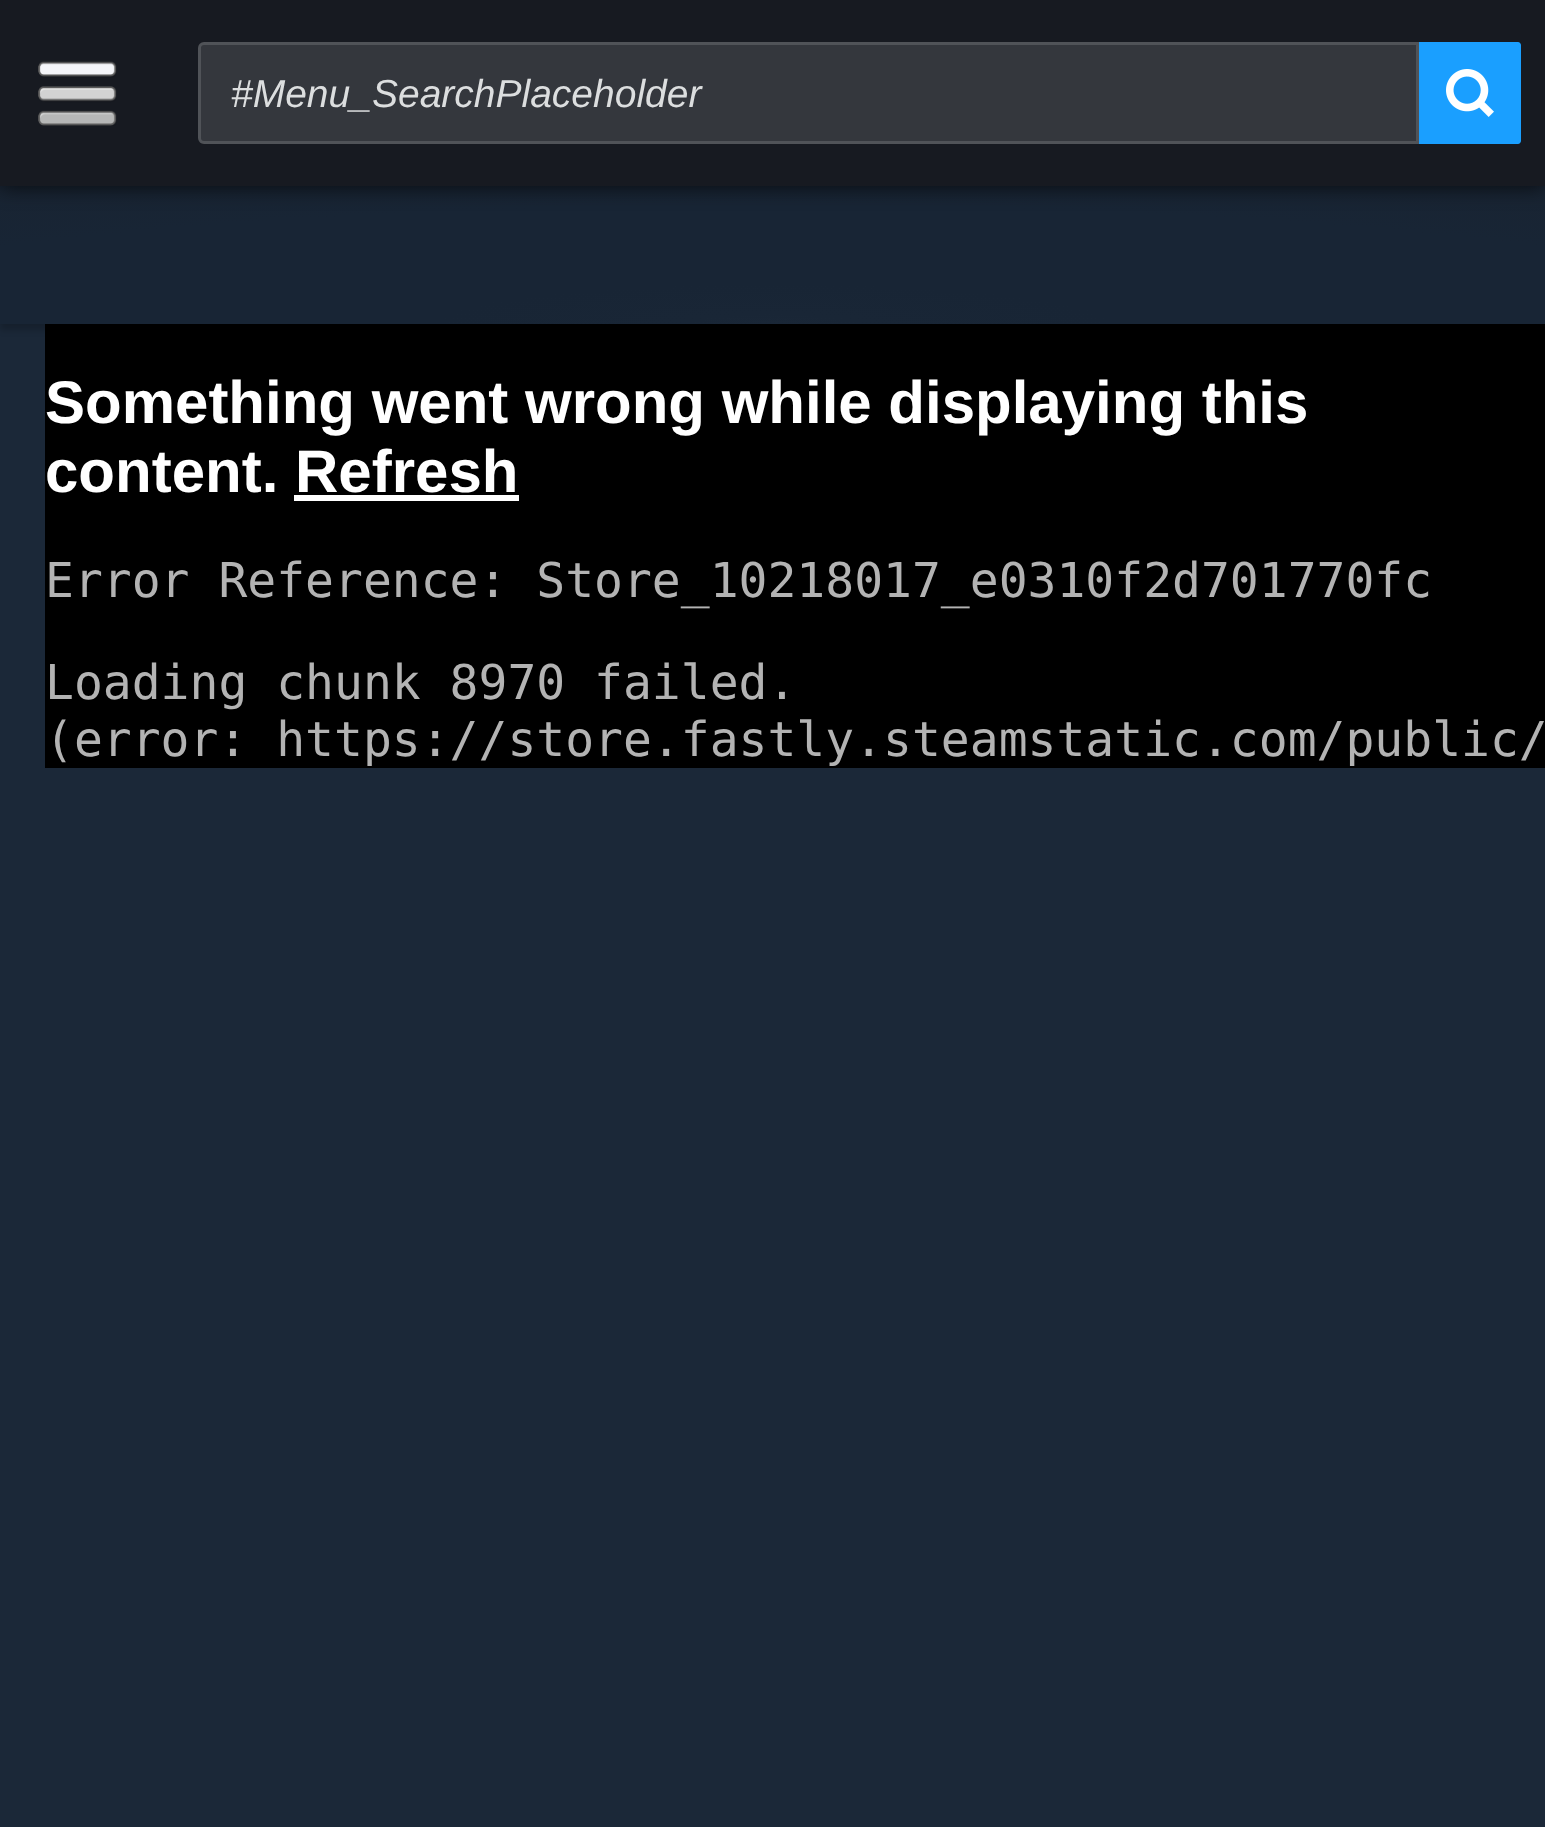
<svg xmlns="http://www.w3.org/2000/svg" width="1545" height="1827">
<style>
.a{font:italic 39px Liberation Sans;fill:#dcdedf}
.b{font:bold 60px Liberation Sans;fill:#fff}
.c{font:48px DejaVu Sans Mono;fill:#b3b3b3}
</style>
<defs>
<radialGradient id="g1" gradientUnits="userSpaceOnUse" cx="0" cy="0" r="1" gradientTransform="matrix(1685 0 0 198 773 324)"><stop offset="0" stop-color="#1a2737"/><stop offset="0.05" stop-color="#192636"/><stop offset="0.2" stop-color="#182535"/><stop offset="0.6" stop-color="#182535"/><stop offset="1" stop-color="#192330"/></radialGradient>
</defs>
<rect width="100%" height="100%" fill="#1b2838"/>
<path fill="#000" d="M45 324h1500v444H45z"/>
<path fill="#00000033" filter="blur(3px)" d="M0 192h1545v138H0z"/>
<path fill="url(#g1)" d="M0 186h1545v138H0z"/>
<path fill="#000000bf" filter="blur(10.5px)" d="M0 0h1545v186H0z"/>
<path fill="#171a21" d="M0 0h1545v186H0z"/>
<image href="1.png" x="38" y="61" width="79" height="65"/>
<rect fill="#34373d" x="198" y="42" width="1323" height="102" rx="6"/>
<path fill="none" stroke="#ffffff24" stroke-width="3" d="M204 43.5h1213.5v99h-1213.5c-2.5 0-4.5-2-4.5-4.5v-90c0-2.5 2-4.5 4.5-4.5z"/>
<path fill="#1a9fff" d="M1419 42h99c1.5 0 3 1.5 3 3v96c0 1.5-1.5 3-3 3h-99z"/>
<image href="2.png" x="1446" y="69" width="48" height="48"/>
<path fill="#fff" d="M294 495h225v6H294z"/>
<text class="a" x="231" y="107">#Menu_SearchPlaceholder</text>
<text class="b" x="45" y="423">Something went wrong while displaying this</text>
<text class="b" x="45" y="492">content. Refresh</text>
<text class="c" x="45" y="597">Error Reference: Store_10218017_e0310f2d701770fc</text>
<text class="c" x="45" y="699">Loading chunk 8970 failed.</text>
<text class="c" x="45" y="756">(error: https://store.fastly.steamstatic.com/public/</text>
</svg>
